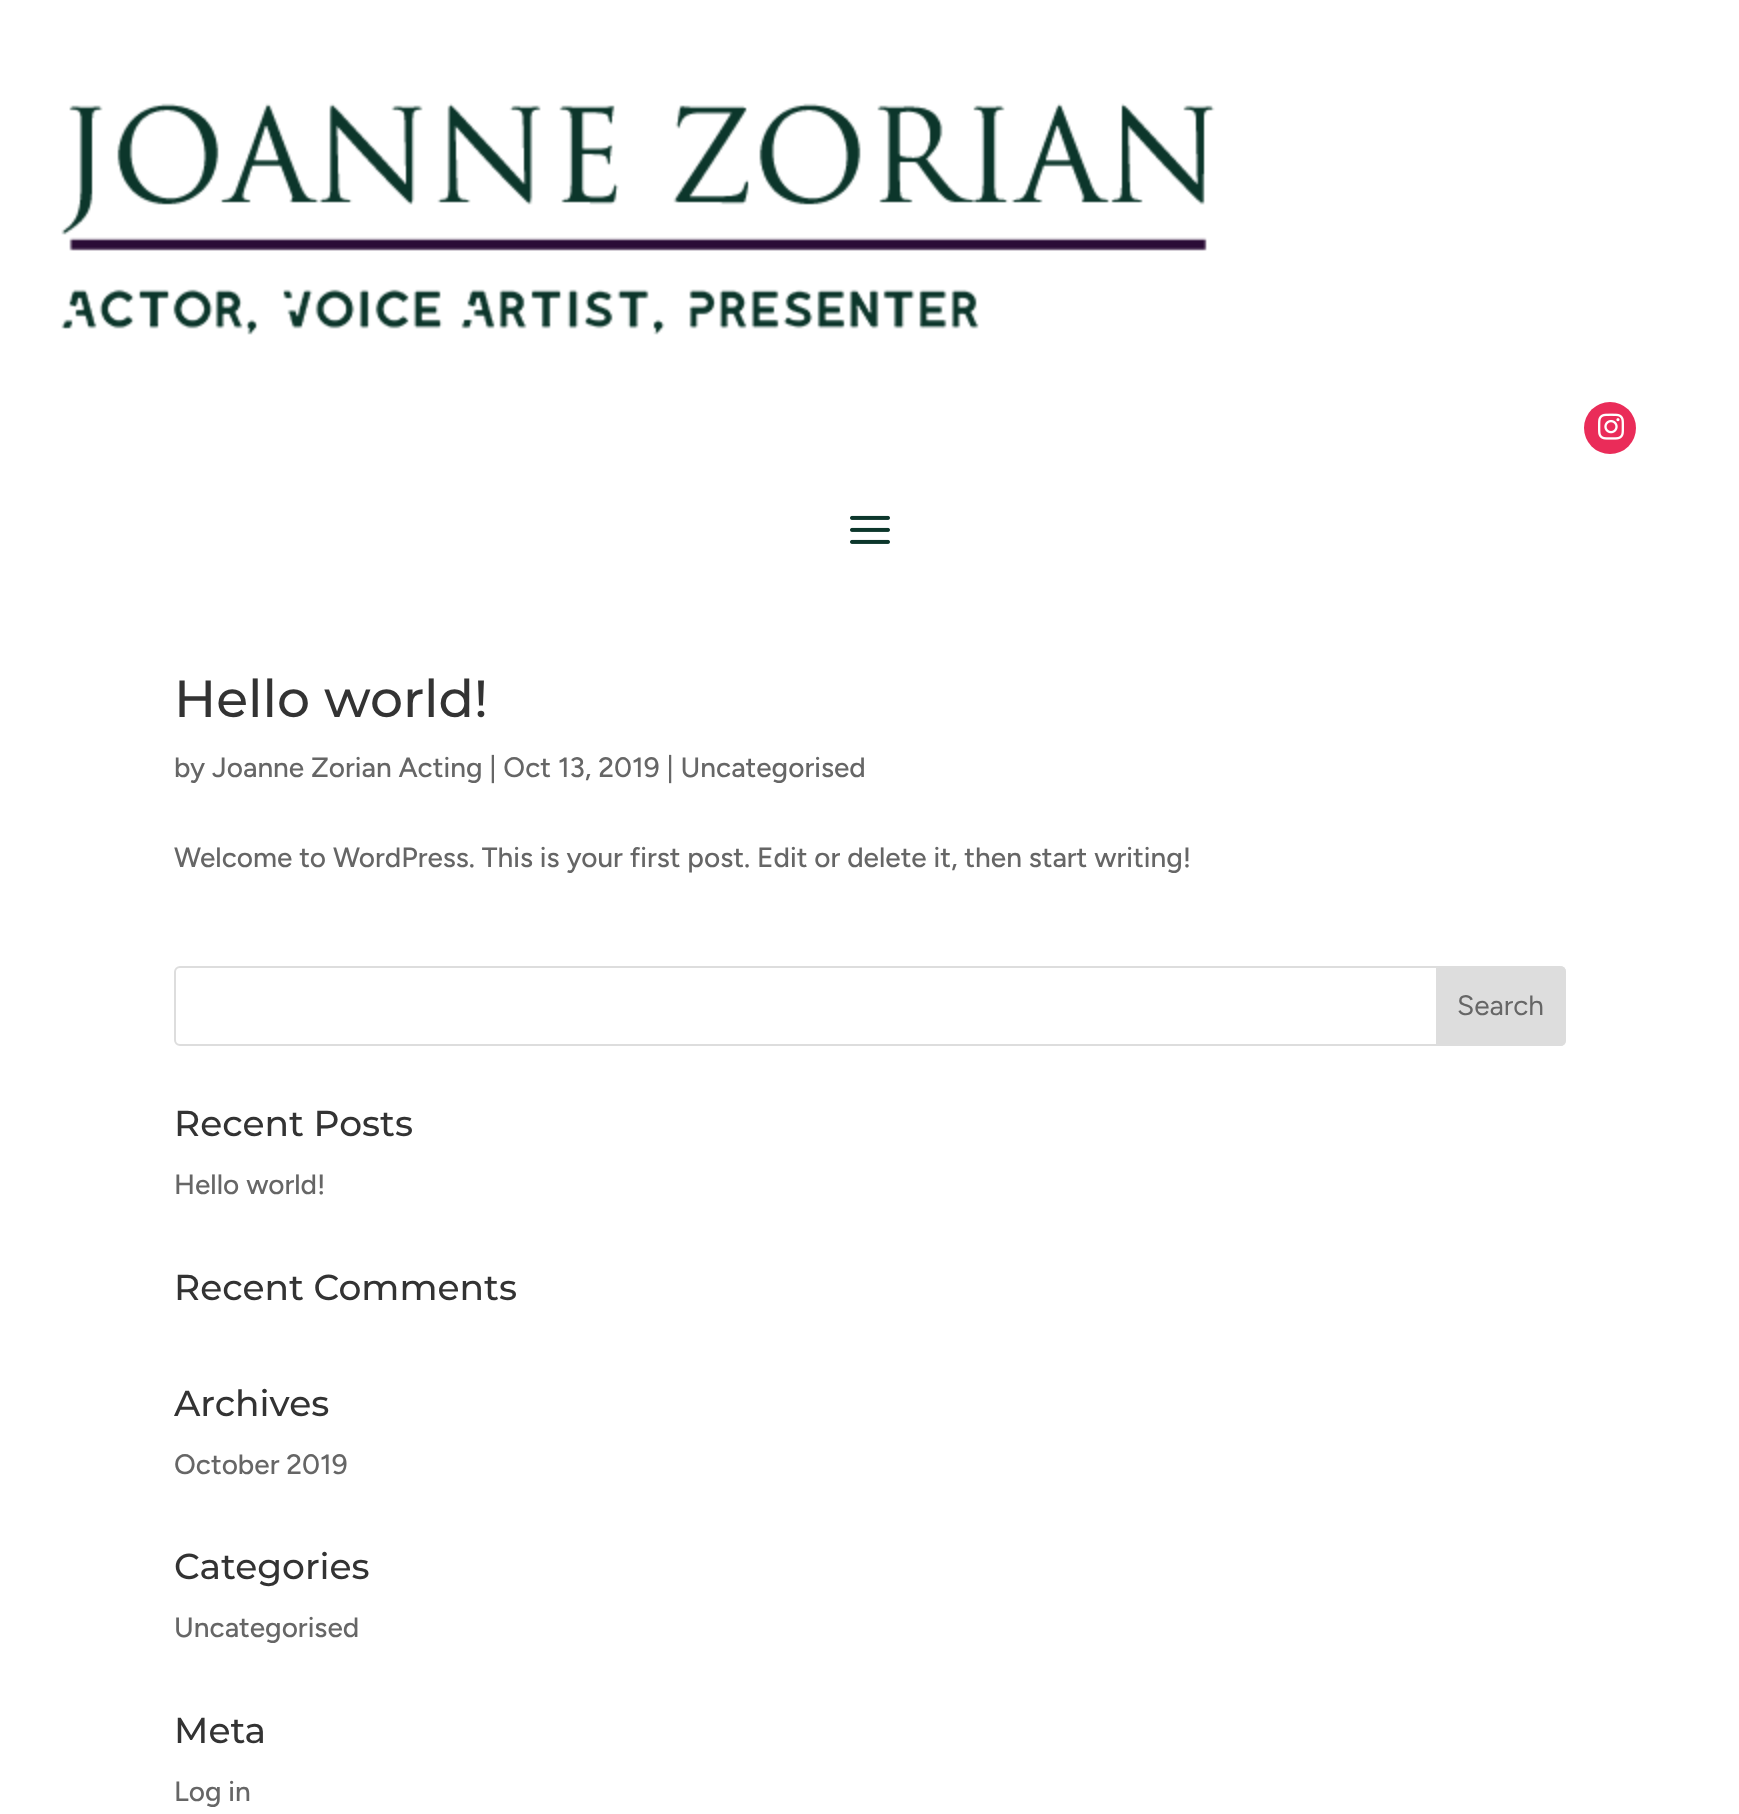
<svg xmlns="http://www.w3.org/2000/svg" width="1739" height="1814">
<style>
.a{font:100 52px Montserrat;fill:#333}
.b{font:300 28px Figtree;fill:#666}
.c{font:300 28px 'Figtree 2';fill:#666}
.d{font:100 36px Montserrat;fill:#333}
</style>
<rect width="100%" height="100%" fill="#fff"/>
<image href="1.png" x="61" y="103" width="1154" height="232"/>
<circle fill="#ea2c59" cx="1610" cy="428" r="26"/>
<image href="2.png" x="1598" y="413" width="26" height="27"/>
<image href="3.png" x="850" y="515" width="40" height="29"/>
<rect fill="none" stroke="#ddd" stroke-width="2" x="175" y="967" width="1390" height="78" rx="5"/>
<path fill="#ddd" stroke="#ddd" stroke-width="2" d="M1437 967h123c3 0 5 2 5 5v68c0 3-2 5-5 5h-123z"/>
<text class="a" x="174" y="717">Hello world!</text>
<text class="b" x="174" y="777">by Joanne Zorian Acting | Oct 13, 2019 | Uncategorised</text>
<text class="b" x="174" y="867">Welcome to WordPress. This is your first post. Edit or delete it, then start writing!</text>
<text class="c" x="1457" y="1015">Search</text>
<text class="d" x="174" y="1136">Recent Posts</text>
<text class="b" x="174" y="1194">Hello world!</text>
<text class="d" x="174" y="1300">Recent Comments</text>
<text class="d" x="174" y="1416">Archives</text>
<text class="b" x="174" y="1474">October 2019</text>
<text class="d" x="174" y="1579">Categories</text>
<text class="b" x="174" y="1637">Uncategorised</text>
<text class="d" x="174" y="1743">Meta</text>
<text class="b" x="174" y="1801">Log in</text>
</svg>
